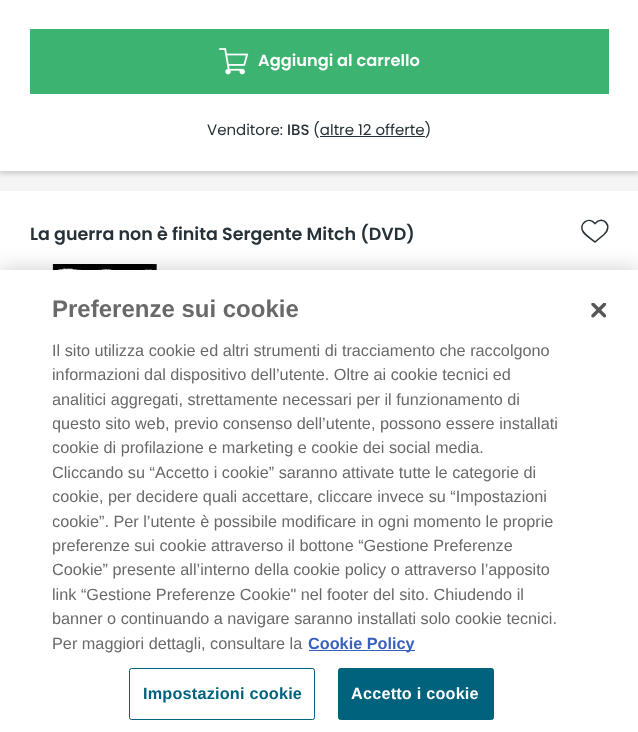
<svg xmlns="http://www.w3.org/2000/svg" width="638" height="732">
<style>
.a{font:600 16.25px Poppins;fill:#fff}
.b{font:15px Poppins;fill:#263238}
.c{font:500 15px Poppins;fill:#263238}
.d{font:600 17.5px Poppins;fill:#263238}
.e{font:bold 24px Liberation Sans;fill:#696969}
.f{font:16.25px Liberation Sans;fill:#696969}
.g{font:bold 16.25px Liberation Sans;fill:#3860be}
.h{font:bold 16.25px Liberation Sans;letter-spacing:0.2px;fill:#00627d}
.i{font:bold 16.25px Liberation Sans;letter-spacing:0.2px;fill:#fff}
</style>
<defs>
<clipPath id="clip1"><path d="M53 295h505v360H53z"/></clipPath>
</defs>
<rect width="100%" height="100%" fill="#f5f5f5"/>
<path fill="#00000029" filter="blur(2.5px)" d="M0 -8h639v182H0z"/>
<path fill="#fff" d="M0 0h638v171H0z"/>
<path fill="#3cb371" d="M30 29h579v65H30z"/>
<image href="1.png" x="219" y="48" width="30" height="27"/>
<path fill="#263238" d="M320 136h105v1H320z"/>
<path fill="#fff" d="M0 191h638v79H0z"/>
<path fill="none" stroke="#263238" stroke-width="1.6" d="M595 242c-3.5-3-10-7-12-10.5c-4.5-7.5 5.5-15.5 12-8c8-9 18.5 3 9 11z"/>
<image href="2.png" x="52" y="264" width="105" height="6"/>
<path fill="#00000033" filter="blur(11px)" d="M0 270h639v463H0z"/>
<path fill="#fff" d="M0 270h638v462H0z"/>
<path fill="#3860be" d="M309 650h106v1H309z"/>
<rect fill="none" stroke="#00627d" x="129.5" y="668.5" width="185" height="51" rx="2"/>
<rect fill="#00627d" stroke="#00627d" x="338.5" y="668.5" width="155" height="51" rx="2"/>
<image href="3.png" x="591" y="303" width="15" height="15"/>
<text class="a" x="258" y="66">Aggiungi al carrello</text>
<text class="b" x="207" y="135">Venditore:</text>
<text class="c" x="287" y="135">IBS</text>
<text class="b" x="313" y="135">(altre 12 offerte)</text>
<text class="d" x="30" y="240">La guerra non è finita Sergente Mitch (DVD)</text>
<text class="e" x="52" y="317">Preferenze sui cookie</text>
<text class="f" x="52" y="356">Il sito utilizza cookie ed altri strumenti di tracciamento che raccolgono</text>
<text class="f" x="52" y="380">informazioni dal dispositivo dell’utente. Oltre ai cookie tecnici ed</text>
<g clip-path="url(#clip1)">
<text class="f" x="52" y="405">analitici aggregati, strettamente necessari per il funzionamento di</text>
<text class="f" x="52" y="429">questo sito web, previo consenso dell’utente, possono essere installati</text>
<text class="f" x="52" y="453">cookie di profilazione e marketing e cookie dei social media.</text>
<text class="f" x="52" y="478">Cliccando su “Accetto i cookie” saranno attivate tutte le categorie di</text>
<text class="f" x="52" y="502">cookie, per decidere quali accettare, cliccare invece su “Impostazioni</text>
<text class="f" x="52" y="527">cookie”. Per l’utente è possibile modificare in ogni momento le proprie</text>
</g>
<text class="f" x="52" y="551">preferenze sui cookie attraverso il bottone “Gestione Preferenze</text>
<g clip-path="url(#clip1)">
<text class="f" x="52" y="575">Cookie” presente all’interno della cookie policy o attraverso l’apposito</text>
</g>
<text class="f" x="52" y="600">link “Gestione Preferenze Cookie" nel footer del sito. Chiudendo il</text>
<text class="f" x="52" y="624">banner o continuando a navigare saranno installati solo cookie tecnici.</text>
<text class="f" x="52" y="649">Per maggiori dettagli, consultare la</text>
<text class="g" x="308" y="649">Cookie Policy</text>
<text class="h" x="143" y="699">Impostazioni cookie</text>
<text class="i" x="351" y="699">Accetto i cookie</text>
</svg>
